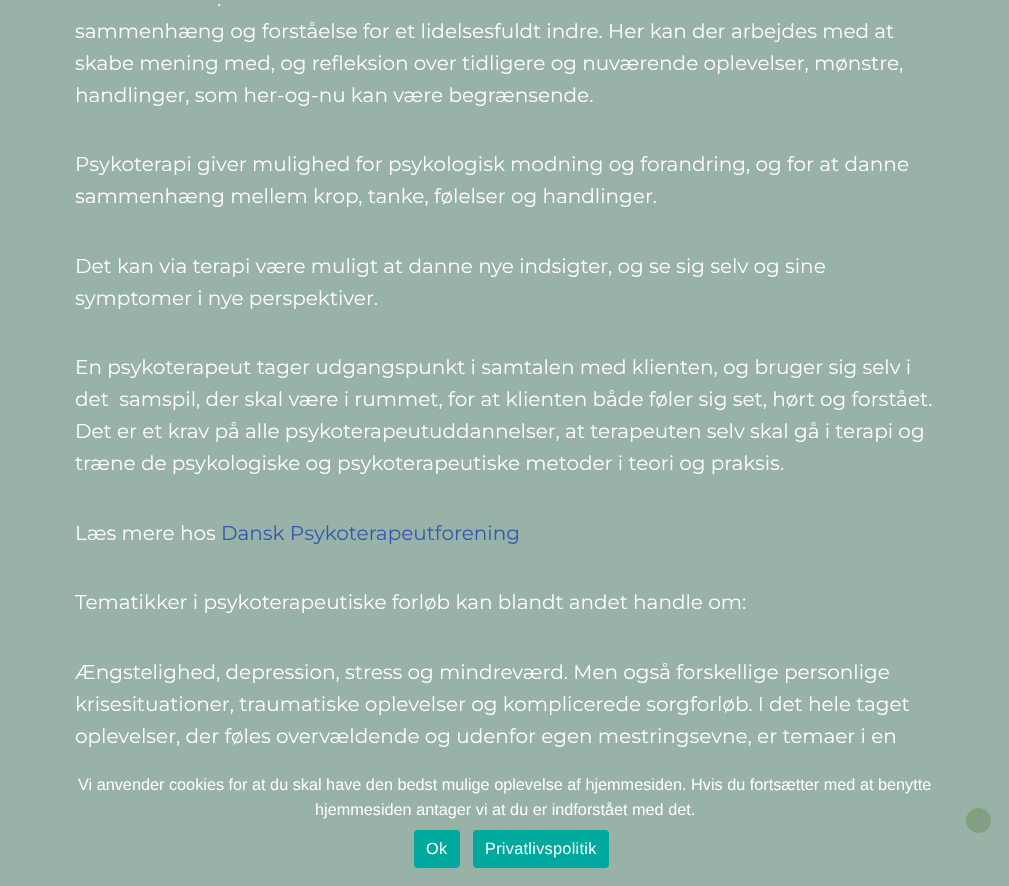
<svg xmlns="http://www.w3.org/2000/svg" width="1009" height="886">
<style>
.a{font:20px Montserrat;fill:#fff}
.b{font:20px Montserrat;fill:#2f5aae}
.c{font:16.25px Liberation Sans;fill:#fff}
.d{font:16.25px Liberation Sans;letter-spacing:0.3px;fill:#fff}
</style>
<rect width="100%" height="100%" fill="#98b2a7"/>
<circle fill="#80a17e" cx="978.5" cy="820.5" r="12.5"/>
<path fill="#8c9994" d="M985.5 813l2 2l-13 13l-2-1.5z"/>
<path fill="#8c9994" d="M972.5 815l2-2l13 13.5l-2 1.5z"/>
<rect fill="#00a99d" x="414" y="830" width="46" height="38" rx="4"/>
<rect fill="#00a99d" x="473" y="830" width="136" height="38" rx="4"/>
<text class="a" x="217" y="6">.</text>
<text class="a" x="75" y="38">sammenhæng og forståelse for et lidelsesfuldt indre. Her kan der arbejdes med at</text>
<text class="a" x="75" y="70">skabe mening med, og refleksion over tidligere og nuværende oplevelser, mønstre,</text>
<text class="a" x="75" y="102">handlinger, som her-og-nu kan være begrænsende.</text>
<text class="a" x="75" y="171">Psykoterapi giver mulighed for psykologisk modning og forandring, og for at danne</text>
<text class="a" x="75" y="203">sammenhæng mellem krop, tanke, følelser og handlinger.</text>
<text class="a" x="75" y="273">Det kan via terapi være muligt at danne nye indsigter, og se sig selv og sine</text>
<text class="a" x="75" y="305">symptomer i nye perspektiver.</text>
<text class="a" x="75" y="374">En psykoterapeut tager udgangspunkt i samtalen med klienten, og bruger sig selv i</text>
<text class="a" xml:space="preserve" x="75" y="406">det  samspil, der skal være i rummet, for at klienten både føler sig set, hørt og forstået.</text>
<text class="a" x="75" y="438">Det er et krav på alle psykoterapeutuddannelser, at terapeuten selv skal gå i terapi og</text>
<text class="a" x="75" y="470">træne de psykologiske og psykoterapeutiske metoder i teori og praksis.</text>
<text class="a" x="75" y="540">Læs mere hos</text>
<text class="b" x="221" y="540">Dansk Psykoterapeutforening</text>
<text class="a" x="75" y="609">Tematikker i psykoterapeutiske forløb kan blandt andet handle om:</text>
<text class="a" x="75" y="679">Ængstelighed, depression, stress og mindreværd. Men også forskellige personlige</text>
<text class="a" x="75" y="711">krisesituationer, traumatiske oplevelser og komplicerede sorgforløb. I det hele taget</text>
<text class="a" x="75" y="743">oplevelser, der føles overvældende og udenfor egen mestringsevne, er temaer i en</text>
<text class="c" x="78" y="790">Vi anvender cookies for at du skal have den bedst mulige oplevelse af hjemmesiden. Hvis du fortsætter med at benytte</text>
<text class="c" x="315" y="815">hjemmesiden antager vi at du er indforstået med det.</text>
<text class="d" x="426" y="854">Ok</text>
<text class="d" x="485" y="854">Privatlivspolitik</text>
</svg>
